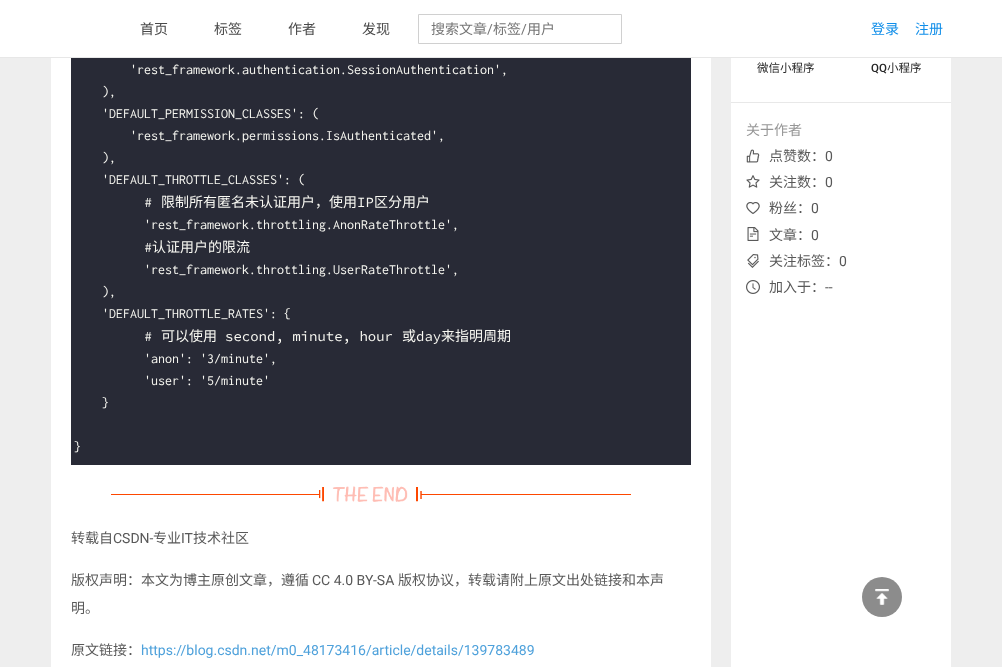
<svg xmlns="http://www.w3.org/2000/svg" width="1002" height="667">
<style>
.a{font:14px Noto Sans CJK SC;fill:#494949}
.b{font:14px Noto Sans CJK SC;fill:#757575}
.c{font:14px Roboto;fill:#757575}
.d{font:14px Noto Sans CJK SC;fill:#108ee9}
.e{font:14px Inconsolata;fill:#f8f8f2}
.f{font:14px Source Code Pro;fill:#f8f8f2}
.g{font:14px Noto Sans CJK SC;fill:#f8f8f2}
.h{font:14px Noto Sans CJK SC;fill:#595959}
.i{font:14px Roboto;fill:#595959}
.j{font:14px Roboto;fill:#4ea1db}
.k{font:11.5px Noto Sans CJK SC;fill:#262626}
.l{font:500 11.5px Roboto;fill:#262626}
.m{font:14px Noto Sans CJK SC;fill:#969696}
</style>
<rect width="100%" height="100%" fill="#eee"/>
<path fill="#fff" d="M0 0h1002v57H0z"/>
<path fill="#e7e7e7" d="M0 57h1002v1H0z"/>
<path fill="none" stroke="#d0d0d0" d="M418.5 14.5h203v29H418.5z"/>
<path fill="#fff" d="M51 58h900v609H51z"/>
<path fill="#282a36" d="M71 58h620v407H71z"/>
<image href="1.png" x="111" y="486" width="520" height="16"/>
<path fill="#eee" d="M711 58h20v609H711z"/>
<path fill="#e8e8e8" d="M731 102h220v1H731z"/>
<image href="2.png" x="746" y="149" width="14" height="14"/>
<image href="3.png" x="746" y="175" width="14" height="13"/>
<image href="4.png" x="746" y="202" width="14" height="12"/>
<image href="5.png" x="747" y="227" width="12" height="14"/>
<image href="6.png" x="747" y="254" width="12" height="14"/>
<image href="7.png" x="746" y="280" width="14" height="14"/>
<circle fill="#8c8c8c" cx="882" cy="597" r="20"/>
<image href="8.png" x="875" y="589" width="14" height="16"/>
<text class="a" x="140" y="34">首页</text>
<text class="a" x="214" y="34">标签</text>
<text class="a" x="288" y="34">作者</text>
<text class="a" x="362" y="34">发现</text>
<text class="b" x="431" y="34">搜索文章</text>
<text class="c" x="487" y="34">/</text>
<text class="b" x="493" y="34">标签</text>
<text class="c" x="521" y="34">/</text>
<text class="b" x="527" y="34">用户</text>
<text class="d" x="871" y="34">登录</text>
<text class="d" x="915" y="34">注册</text>
<text class="e" x="130" y="74">'rest_framework.authentication.SessionAuthentication',</text>
<text class="e" x="102" y="96">),</text>
<text class="e" x="102" y="118">'DEFAULT_PERMISSION_CLASSES': (</text>
<text class="e" x="130" y="140">'rest_framework.permissions.IsAuthenticated',</text>
<text class="e" x="102" y="162">),</text>
<text class="e" x="102" y="184">'DEFAULT_THROTTLE_CLASSES': (</text>
<text class="f" x="144" y="207">#</text>
<text class="g" x="161" y="207">限制所有匿名未认证用户，使用</text>
<text class="f" x="357" y="207">IP</text>
<text class="g" x="374" y="207">区分用户</text>
<text class="e" x="144" y="229">'rest_framework.throttling.AnonRateThrottle',</text>
<text class="f" x="144" y="252">#</text>
<text class="g" x="152" y="252">认证用户的限流</text>
<text class="e" x="144" y="274">'rest_framework.throttling.UserRateThrottle',</text>
<text class="e" x="102" y="296">),</text>
<text class="e" x="102" y="318">'DEFAULT_THROTTLE_RATES': {</text>
<text class="f" x="144" y="341">#</text>
<text class="g" x="161" y="341">可以使用</text>
<text class="f" x="225" y="341">second, minute, hour</text>
<text class="g" x="402" y="341">或</text>
<text class="f" x="416" y="341">day</text>
<text class="g" x="441" y="341">来指明周期</text>
<text class="e" x="144" y="363">'anon': '3/minute',</text>
<text class="e" x="144" y="385">'user': '5/minute'</text>
<text class="e" x="102" y="407">}</text>
<text class="e" x="74" y="451">}</text>
<text class="h" x="71" y="543">转载自</text>
<text class="i" x="113" y="543">CSDN-</text>
<text class="h" x="153" y="543">专业</text>
<text class="i" x="181" y="543">IT</text>
<text class="h" x="193" y="543">技术社区</text>
<text class="h" x="71" y="585">版权声明：本文为博主原创文章，遵循</text>
<text class="i" x="312" y="585">CC 4.0 BY-SA</text>
<text class="h" x="398" y="585">版权协议，转载请附上原文出处链接和本声</text>
<text class="h" x="71" y="613">明。</text>
<text class="h" x="71" y="655">原文链接：</text>
<text class="j" x="141" y="655">https://blog.csdn.net/m0_48173416/article/details/139783489</text>
<text class="k" x="757" y="72">微信小程序</text>
<text class="l" x="871" y="72">QQ</text>
<text class="k" x="887" y="72">小程序</text>
<text class="m" x="746" y="135">关于作者</text>
<text class="h" x="769" y="161">点赞数：</text>
<text class="i" x="825" y="161">0</text>
<text class="h" x="769" y="187">关注数：</text>
<text class="i" x="825" y="187">0</text>
<text class="h" x="769" y="213">粉丝：</text>
<text class="i" x="811" y="213">0</text>
<text class="h" x="769" y="240">文章：</text>
<text class="i" x="811" y="240">0</text>
<text class="h" x="769" y="266">关注标签：</text>
<text class="i" x="839" y="266">0</text>
<text class="h" x="769" y="292">加入于：</text>
<text class="i" x="825" y="292">--</text>
</svg>
